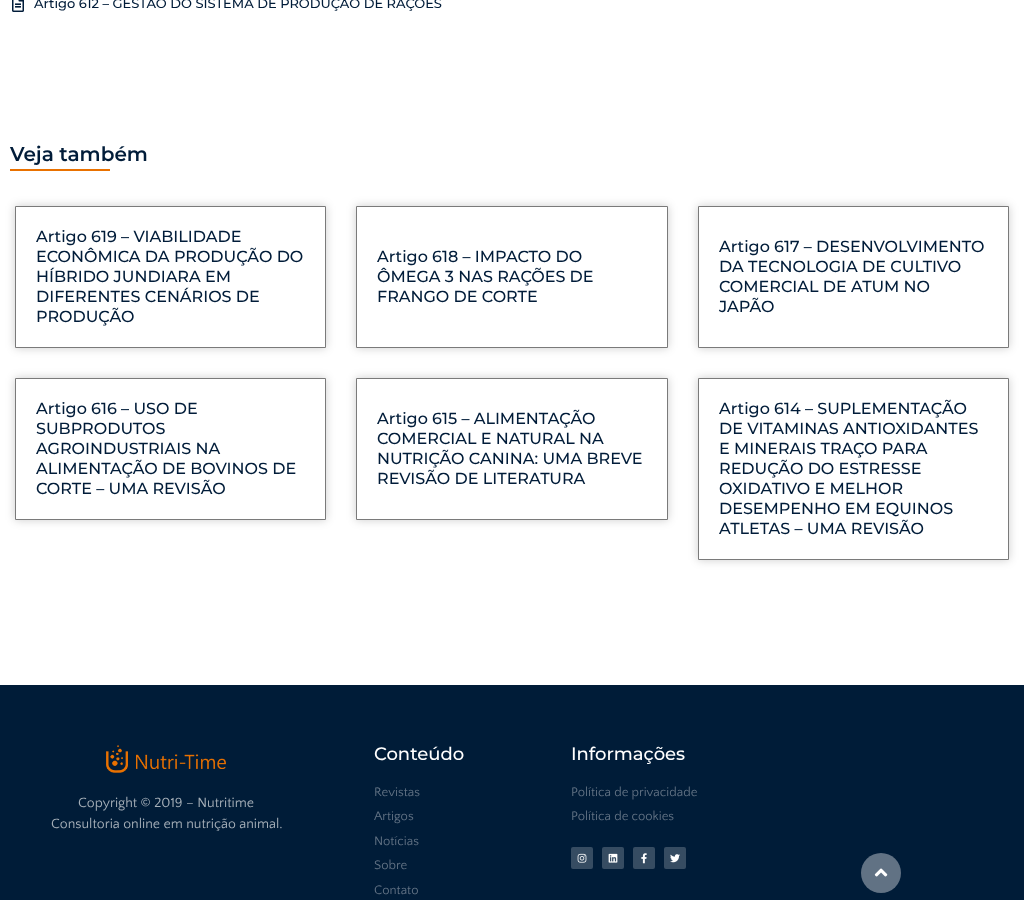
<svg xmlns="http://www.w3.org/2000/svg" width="1024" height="900">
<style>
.a{font:500 13px Montserrat;fill:#011c39}
.b{font:600 20px Montserrat;fill:#011c39}
.c{font:500 16px Montserrat;fill:#011c39}
.d{font:14px Quattrocento Sans;fill:#a6b0b9}
.e{font:500 18px Montserrat;fill:#fff}
.f{font:13px Quattrocento Sans;fill:#617284}
</style>
<defs>
<clipPath id="clip1"><path d="M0 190h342v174h-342zm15 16h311v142h-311z" clip-rule="evenodd"/></clipPath>
<clipPath id="clip2"><path d="M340 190h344v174h-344zm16 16h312v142h-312z" clip-rule="evenodd"/></clipPath>
<clipPath id="clip3"><path d="M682 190h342v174h-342zm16 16h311v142h-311z" clip-rule="evenodd"/></clipPath>
<clipPath id="clip4"><path d="M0 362h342v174h-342zm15 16h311v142h-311z" clip-rule="evenodd"/></clipPath>
<clipPath id="clip5"><path d="M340 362h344v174h-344zm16 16h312v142h-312z" clip-rule="evenodd"/></clipPath>
<clipPath id="clip6"><path d="M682 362h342v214h-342zm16 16h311v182h-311z" clip-rule="evenodd"/></clipPath>
</defs>
<rect width="100%" height="100%" fill="#fff"/>
<image href="1.png" x="12" y="0" width="12" height="12"/>
<path fill="#e97100" d="M10 169h100v2H10z"/>
<g clip-path="url(#clip1)">
<path fill="#00000033" filter="blur(5px)" d="M15 206h311v142H15z"/>
</g>
<path fill="none" stroke="#7a7a7a" d="M15.5 206.5h310v141H15.5z"/>
<g clip-path="url(#clip2)">
<path fill="#00000033" filter="blur(5px)" d="M356 206h312v142H356z"/>
</g>
<path fill="none" stroke="#7a7a7a" d="M356.5 206.5h311v141H356.5z"/>
<g clip-path="url(#clip3)">
<path fill="#00000033" filter="blur(5px)" d="M698 206h311v142H698z"/>
</g>
<path fill="none" stroke="#7a7a7a" d="M698.5 206.5h310v141H698.5z"/>
<g clip-path="url(#clip4)">
<path fill="#00000033" filter="blur(5px)" d="M15 378h311v142H15z"/>
</g>
<path fill="none" stroke="#7a7a7a" d="M15.5 378.5h310v141H15.5z"/>
<g clip-path="url(#clip5)">
<path fill="#00000033" filter="blur(5px)" d="M356 378h312v142H356z"/>
</g>
<path fill="none" stroke="#7a7a7a" d="M356.5 378.5h311v141H356.5z"/>
<g clip-path="url(#clip6)">
<path fill="#00000033" filter="blur(5px)" d="M698 378h311v182H698z"/>
</g>
<path fill="none" stroke="#7a7a7a" d="M698.5 378.5h310v181H698.5z"/>
<path fill="#001c38" d="M0 685h1024v215H0z"/>
<image href="2.png" x="106" y="745" width="120" height="28"/>
<rect fill="#364c62" x="571" y="847" width="22" height="22" rx="2"/>
<image href="3.png" x="577" y="853" width="10" height="10"/>
<rect fill="#364c62" x="602" y="847" width="22" height="22" rx="2"/>
<image href="4.png" x="608" y="853" width="10" height="10"/>
<rect fill="#364c62" x="633" y="847" width="22" height="22" rx="2"/>
<image href="5.png" x="641" y="853" width="6" height="11"/>
<rect fill="#364c62" x="664" y="847" width="22" height="22" rx="2"/>
<image href="6.png" x="670" y="854" width="10" height="9"/>
<circle fill="#617284" cx="881" cy="873" r="20"/>
<image href="7.png" x="874" y="868" width="14" height="9"/>
<text class="a" x="34" y="8">Artigo 612 – GESTÃO DO SISTEMA DE PRODUÇÃO DE RAÇÕES</text>
<text class="b" x="10" y="161">Veja também</text>
<text class="c" x="36" y="242">Artigo 619 – VIABILIDADE</text>
<text class="c" x="36" y="262">ECONÔMICA DA PRODUÇÃO DO</text>
<text class="c" x="36" y="282">HÍBRIDO JUNDIARA EM</text>
<text class="c" x="36" y="302">DIFERENTES CENÁRIOS DE</text>
<text class="c" x="36" y="322">PRODUÇÃO</text>
<text class="c" x="377" y="262">Artigo 618 – IMPACTO DO</text>
<text class="c" x="377" y="282">ÔMEGA 3 NAS RAÇÕES DE</text>
<text class="c" x="377" y="302">FRANGO DE CORTE</text>
<text class="c" x="719" y="252">Artigo 617 – DESENVOLVIMENTO</text>
<text class="c" x="719" y="272">DA TECNOLOGIA DE CULTIVO</text>
<text class="c" x="719" y="292">COMERCIAL DE ATUM NO</text>
<text class="c" x="719" y="312">JAPÃO</text>
<text class="c" x="36" y="414">Artigo 616 – USO DE</text>
<text class="c" x="36" y="434">SUBPRODUTOS</text>
<text class="c" x="36" y="454">AGROINDUSTRIAIS NA</text>
<text class="c" x="36" y="474">ALIMENTAÇÃO DE BOVINOS DE</text>
<text class="c" x="36" y="494">CORTE – UMA REVISÃO</text>
<text class="c" x="377" y="424">Artigo 615 – ALIMENTAÇÃO</text>
<text class="c" x="377" y="444">COMERCIAL E NATURAL NA</text>
<text class="c" x="377" y="464">NUTRIÇÃO CANINA: UMA BREVE</text>
<text class="c" x="377" y="484">REVISÃO DE LITERATURA</text>
<text class="c" x="719" y="414">Artigo 614 – SUPLEMENTAÇÃO</text>
<text class="c" x="719" y="434">DE VITAMINAS ANTIOXIDANTES</text>
<text class="c" x="719" y="454">E MINERAIS TRAÇO PARA</text>
<text class="c" x="719" y="474">REDUÇÃO DO ESTRESSE</text>
<text class="c" x="719" y="494">OXIDATIVO E MELHOR</text>
<text class="c" x="719" y="514">DESEMPENHO EM EQUINOS</text>
<text class="c" x="719" y="534">ATLETAS – UMA REVISÃO</text>
<text class="d" x="78" y="807">Copyright © 2019 – Nutritime</text>
<text class="d" x="51" y="828">Consultoria online em nutrição animal.</text>
<text class="e" x="374" y="760">Conteúdo</text>
<text class="f" x="374" y="796">Revistas</text>
<text class="f" x="374" y="820">Artigos</text>
<text class="f" x="374" y="845">Notícias</text>
<text class="f" x="374" y="869">Sobre</text>
<text class="f" x="374" y="894">Contato</text>
<text class="e" x="571" y="760">Informações</text>
<text class="f" x="571" y="796">Política de privacidade</text>
<text class="f" x="571" y="820">Política de cookies</text>
</svg>
